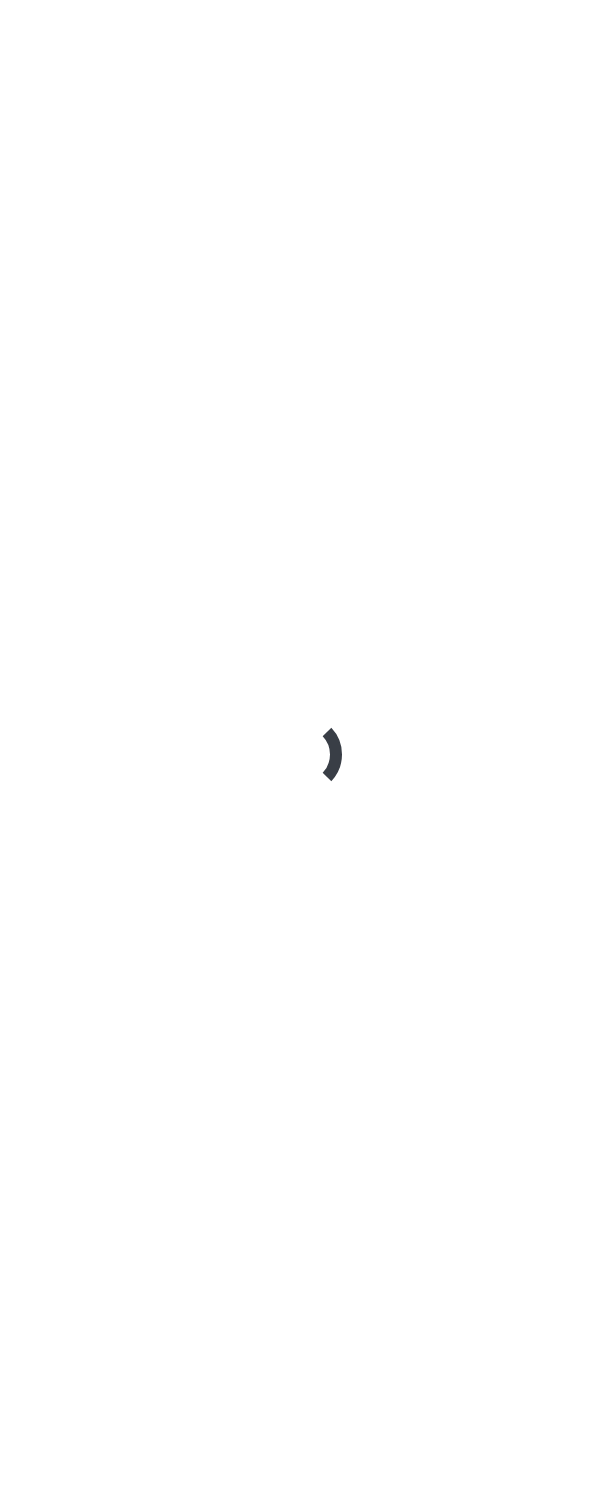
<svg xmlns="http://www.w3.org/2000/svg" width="607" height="1507">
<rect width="100%" height="100%" fill="#fff"/>
<path fill="none" stroke="#393e46" stroke-width="12" d="M327 732c12 12.5 12 32.5 0 45m0-45c12 12.5 12 32.5 0 45m0-45c12 12.5 12 32.5 0 45"/>
</svg>
